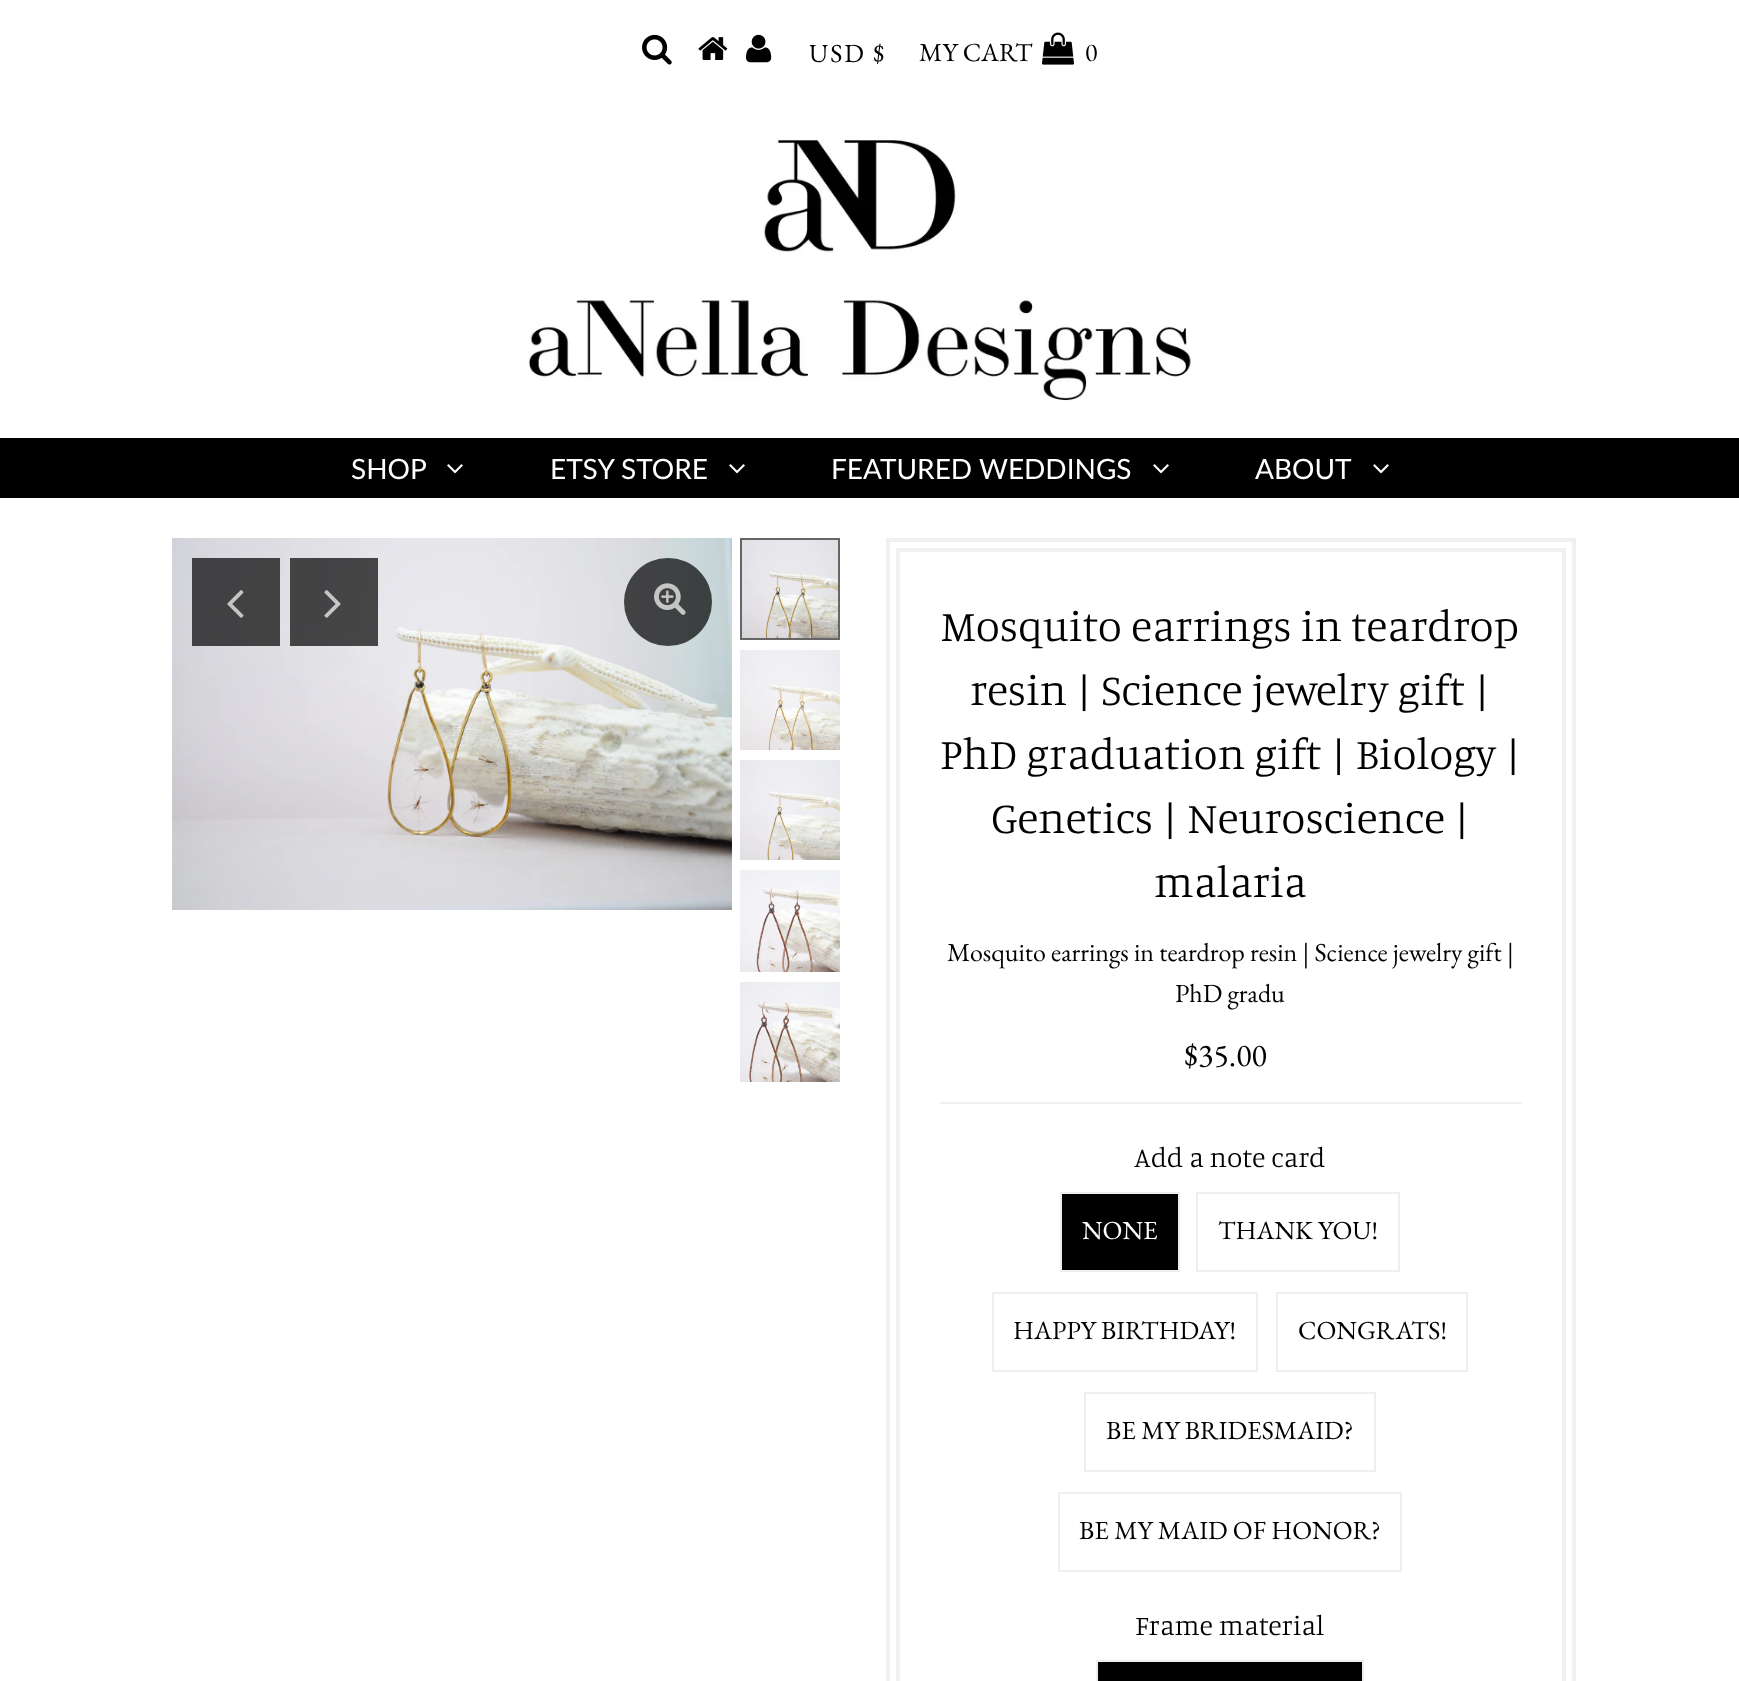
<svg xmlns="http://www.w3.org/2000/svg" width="1739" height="1681">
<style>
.a{font:26px EB Garamond;letter-spacing:2px;fill:#000}
.b{font:26px EB Garamond;fill:#000}
.c{font:28px Lato;fill:#fff}
.d{font:300 44px Manuale;fill:#000}
.e{font:32px EB Garamond;fill:#000}
.f{font:300 28px Manuale;fill:#000}
.g{font:26px EB Garamond;fill:#fff}
</style>
<rect width="100%" height="100%" fill="#fff"/>
<image href="1.png" x="642" y="34" width="30" height="31"/>
<image href="2.png" x="698" y="37" width="30" height="23"/>
<image href="3.png" x="746" y="34" width="26" height="29"/>
<image href="4.png" x="1042" y="32" width="32" height="33"/>
<image href="5.png" x="528" y="139" width="663" height="262"/>
<path fill="#000" d="M0 438h1739v60H0z"/>
<image href="6.png" x="447" y="464" width="16" height="10"/>
<image href="6.png" x="729" y="464" width="16" height="10"/>
<image href="6.png" x="1153" y="464" width="16" height="10"/>
<image href="6.png" x="1373" y="464" width="16" height="10"/>
<image href="7.png" x="172" y="538" width="560" height="372"/>
<circle fill="#000000b3" cx="668" cy="602" r="44"/>
<image href="8.png" x="654" y="583" width="32" height="32"/>
<path fill="#000000b3" d="M192 558h88v88H192z"/>
<image href="9.png" x="227" y="590" width="17" height="28"/>
<path fill="#000000b3" d="M290 558h88v88H290z"/>
<image href="10.png" x="324" y="590" width="17" height="28"/>
<image href="11.png" x="742" y="540" width="96" height="98"/>
<path fill="none" stroke="#666" stroke-width="2" d="M741 539h98v100H741z"/>
<image href="12.png" x="740" y="650" width="100" height="100"/>
<image href="13.png" x="740" y="760" width="100" height="100"/>
<image href="14.png" x="740" y="870" width="100" height="102"/>
<image href="15.png" x="740" y="982" width="100" height="100"/>
<path fill="none" stroke="#f0f0f0" stroke-width="4" d="M888 540h686v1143H888z"/>
<path fill="none" stroke="#f0f0f0" stroke-width="4" d="M898 550h666v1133H898z"/>
<path fill="#f0f0f0" d="M940 1102h582v2H940z"/>
<path fill="#000" stroke="#eee" stroke-width="2" d="M1061 1193h118v78H1061z"/>
<path fill="none" stroke="#eee" stroke-width="2" d="M1197 1193h202v78H1197z"/>
<path fill="none" stroke="#eee" stroke-width="2" d="M993 1293h264v78H993z"/>
<path fill="none" stroke="#eee" stroke-width="2" d="M1277 1293h190v78H1277z"/>
<path fill="none" stroke="#eee" stroke-width="2" d="M1085 1393h290v78H1085z"/>
<path fill="none" stroke="#eee" stroke-width="2" d="M1059 1493h342v78H1059z"/>
<path fill="#000" stroke="#eee" stroke-width="2" d="M1097 1661h266v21H1097z"/>
<text class="a" x="809" y="62">USD $</text>
<text class="b" x="919" y="61">MY CART</text>
<text class="b" x="1085" y="61">0</text>
<text class="c" x="351" y="479">SHOP</text>
<text class="c" x="550" y="479">ETSY STORE</text>
<text class="c" x="831" y="479">FEATURED WEDDINGS</text>
<text class="c" x="1255" y="479">ABOUT</text>
<text class="d" x="941" y="641">Mosquito earrings in teardrop</text>
<text class="d" x="970" y="705">resin | Science jewelry gift |</text>
<text class="d" x="940" y="769">PhD graduation gift | Biology |</text>
<text class="d" x="991" y="833">Genetics | Neuroscience |</text>
<text class="d" x="1154" y="897">malaria</text>
<text class="b" x="947" y="961">Mosquito earrings in teardrop resin | Science jewelry gift |</text>
<text class="b" x="1175" y="1002">PhD gradu</text>
<text class="e" x="1184" y="1066">$35.00</text>
<text class="f" x="1134" y="1167">Add a note card</text>
<text class="g" x="1082" y="1239">NONE</text>
<text class="b" x="1218" y="1239">THANK YOU!</text>
<text class="b" x="1013" y="1339">HAPPY BIRTHDAY!</text>
<text class="b" x="1298" y="1339">CONGRATS!</text>
<text class="b" x="1106" y="1439">BE MY BRIDESMAID?</text>
<text class="b" x="1079" y="1539">BE MY MAID OF HONOR?</text>
<text class="f" x="1135" y="1635">Frame material</text>
</svg>
